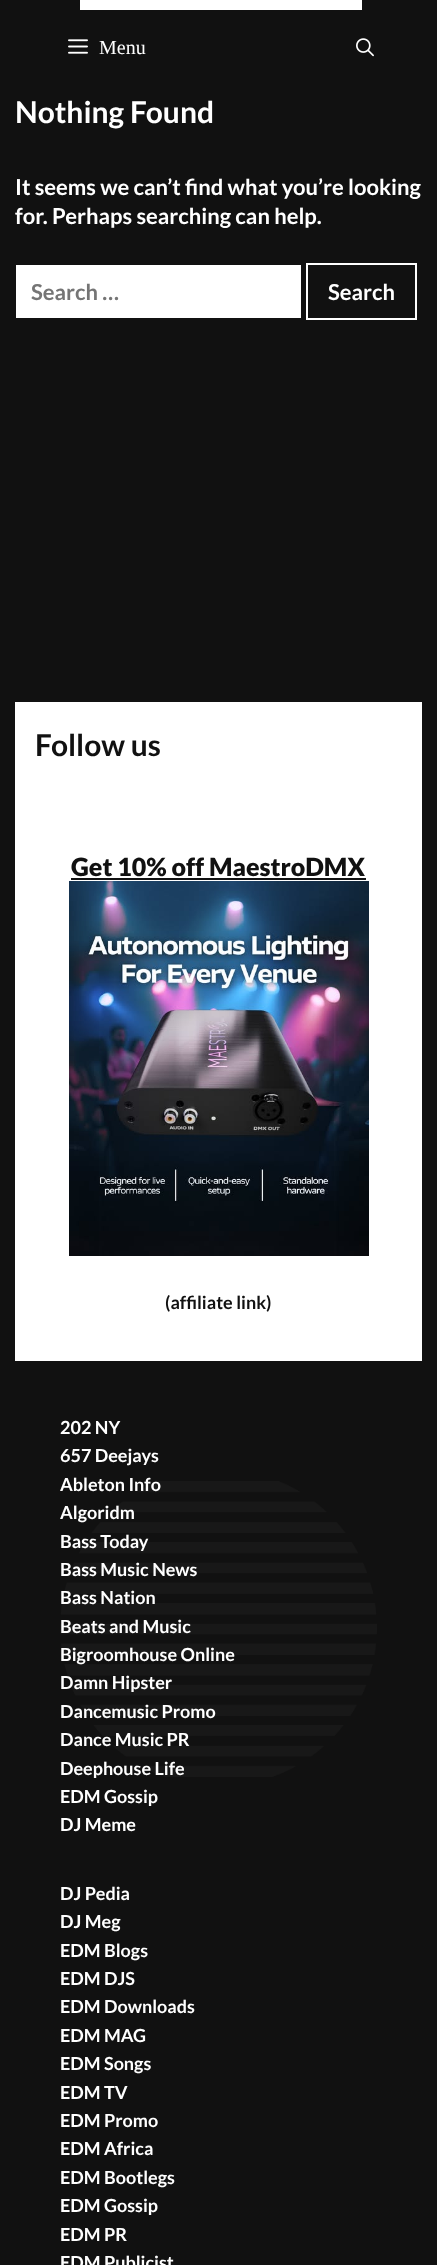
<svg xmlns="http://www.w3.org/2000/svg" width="437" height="2265">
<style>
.a{font:20px Liberation Serif;fill:#fff}
.b{font:bold 30px Lato;fill:#fff}
.c{font:bold 22px Lato;fill:#fff}
.d{font:bold 22px Lato;fill:#757575}
.e{font:bold 30px Lato;fill:#111}
.f{font:900 25px Lato;fill:#111}
.g{font:bold 18px Lato;fill:#111}
.h{font:bold 18px Lato;fill:#fff}
</style>
<rect width="100%" height="100%" fill="#111"/>
<path fill="#fff" d="M80 0h282v10H80z"/>
<image href="1.png" x="68" y="39" width="20" height="15"/>
<image href="2.png" x="356" y="38" width="18" height="19"/>
<path fill="#fff" d="M16 265h285v53H16z"/>
<path fill="none" stroke="#fff" stroke-width="2" d="M307 264h109v55H307z"/>
<path fill="#fff" d="M15 702h407v659H15z"/>
<path fill="#111" d="M71 878h295v2H71z"/>
<image href="3.png" x="69" y="881" width="300" height="375"/>
<image href="4.png" x="60" y="1481" width="317" height="296"/>
<text class="a" x="99" y="54">Menu</text>
<text class="b" x="15" y="123">Nothing Found</text>
<text class="c" x="15" y="195">It seems we can’t find what you’re looking</text>
<text class="c" x="15" y="224">for. Perhaps searching can help.</text>
<text class="d" x="31" y="300">Search …</text>
<text class="c" x="328" y="300">Search</text>
<text class="e" x="35" y="756">Follow us</text>
<text class="f" x="71" y="876">Get 10% off MaestroDMX</text>
<text class="g" x="165" y="1309">(affiliate link)</text>
<text class="h" x="60" y="1434">202 NY</text>
<text class="h" x="60" y="1462">657 Deejays</text>
<text class="h" x="60" y="1491">Ableton Info</text>
<text class="h" x="60" y="1519">Algoridm</text>
<text class="h" x="60" y="1548">Bass Today</text>
<text class="h" x="60" y="1576">Bass Music News</text>
<text class="h" x="60" y="1604">Bass Nation</text>
<text class="h" x="60" y="1633">Beats and Music</text>
<text class="h" x="60" y="1661">Bigroomhouse Online</text>
<text class="h" x="60" y="1689">Damn Hipster</text>
<text class="h" x="60" y="1718">Dancemusic Promo</text>
<text class="h" x="60" y="1746">Dance Music PR</text>
<text class="h" x="60" y="1775">Deephouse Life</text>
<text class="h" x="60" y="1803">EDM Gossip</text>
<text class="h" x="60" y="1831">DJ Meme</text>
<text class="h" x="60" y="1900">DJ Pedia</text>
<text class="h" x="60" y="1928">DJ Meg</text>
<text class="h" x="60" y="1957">EDM Blogs</text>
<text class="h" x="60" y="1985">EDM DJS</text>
<text class="h" x="60" y="2013">EDM Downloads</text>
<text class="h" x="60" y="2042">EDM MAG</text>
<text class="h" x="60" y="2070">EDM Songs</text>
<text class="h" x="60" y="2099">EDM TV</text>
<text class="h" x="60" y="2127">EDM Promo</text>
<text class="h" x="60" y="2155">EDM Africa</text>
<text class="h" x="60" y="2184">EDM Bootlegs</text>
<text class="h" x="60" y="2212">EDM Gossip</text>
<text class="h" x="60" y="2241">EDM PR</text>
<text class="h" x="60" y="2269">EDM Publicist</text>
</svg>
